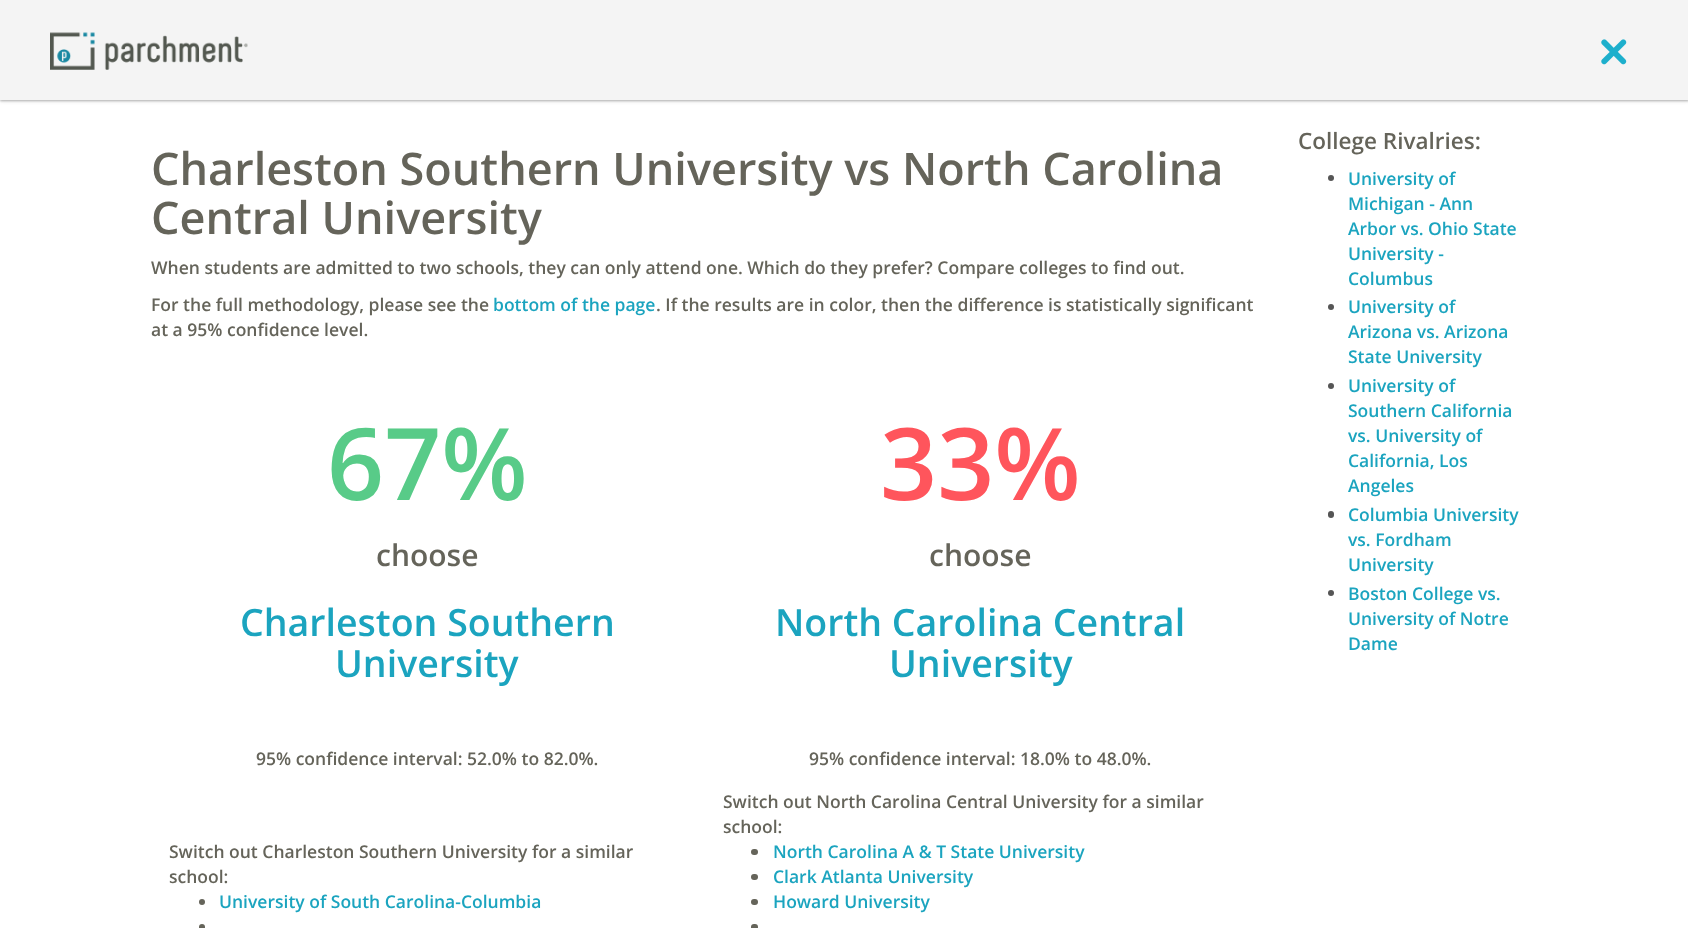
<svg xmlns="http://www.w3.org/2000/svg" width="1688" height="928">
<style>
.a{font:600 45px Open Sans;fill:#65645a}
.b{font:600 17.5px Open Sans;fill:#65645a}
.c{font:600 17.5px Open Sans;fill:#1ba4bf}
.d{font:600 100px Open Sans;fill:#58cb88}
.e{font:600 30px Open Sans;fill:#65645a}
.f{font:600 37.5px Open Sans;fill:#1ba4bf}
.g{font:600 100px Open Sans;fill:#ff555c}
.h{font:600 22.5px Open Sans;fill:#65645a}
</style>
<rect width="100%" height="100%" fill="#fff"/>
<path fill="#0000003d" filter="blur(1px)" d="M0 1h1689v100H0z"/>
<path fill="#0000001f" filter="blur(2px)" d="M0 1h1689v100H0z"/>
<path fill="#f4f4f4" d="M0 0h1688v100H0z"/>
<image href="1.png" x="50" y="32" width="198" height="38"/>
<image href="2.png" x="1601" y="39" width="26" height="26"/>
<circle fill="#65645a" cx="202" cy="902" r="3"/>
<circle fill="#65645a" cx="202" cy="927" r="3"/>
<rect fill="#65645a" x="751" y="849" width="7" height="6" rx="3"/>
<rect fill="#65645a" x="751" y="874" width="7" height="6" rx="3"/>
<rect fill="#65645a" x="751" y="899" width="7" height="6" rx="3"/>
<rect fill="#65645a" x="751" y="924" width="7" height="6" rx="3"/>
<circle fill="#555" cx="1331" cy="178" r="3"/>
<circle fill="#555" cx="1331" cy="307" r="3"/>
<circle fill="#555" cx="1331" cy="386" r="3"/>
<rect fill="#555" x="1328" y="511" width="6" height="7" rx="3"/>
<circle fill="#555" cx="1331" cy="593" r="3"/>
<text class="a" x="151" y="185">Charleston Southern University vs North Carolina</text>
<text class="a" x="151" y="234">Central University</text>
<text class="b" x="151" y="274">When students are admitted to two schools, they can only attend one. Which do they prefer? Compare colleges to find out.</text>
<text class="b" x="151" y="311">For the full methodology, please see the</text>
<text class="c" x="493" y="311">bottom of the page</text>
<text class="b" x="656" y="311">. If the results are in color, then the difference is statistically significant</text>
<text class="b" x="151" y="336">at a 95% confidence level.</text>
<text class="d" x="327" y="500">67%</text>
<text class="e" x="376" y="566">choose</text>
<text class="f" x="240" y="636">Charleston Southern</text>
<text class="f" x="335" y="677">University</text>
<text class="b" x="256" y="765">95% confidence interval: 52.0% to 82.0%.</text>
<text class="b" x="169" y="858">Switch out Charleston Southern University for a similar</text>
<text class="b" x="169" y="883">school:</text>
<text class="c" x="219" y="908">University of South Carolina-Columbia</text>
<text class="g" x="880" y="500">33%</text>
<text class="e" x="929" y="566">choose</text>
<text class="f" x="775" y="636">North Carolina Central</text>
<text class="f" x="889" y="677">University</text>
<text class="b" x="809" y="765">95% confidence interval: 18.0% to 48.0%.</text>
<text class="b" x="723" y="808">Switch out North Carolina Central University for a similar</text>
<text class="b" x="723" y="833">school:</text>
<text class="c" x="773" y="858">North Carolina A &amp; T State University</text>
<text class="c" x="773" y="883">Clark Atlanta University</text>
<text class="c" x="773" y="908">Howard University</text>
<text class="h" x="1298" y="149">College Rivalries:</text>
<text class="c" x="1348" y="185">University of</text>
<text class="c" x="1348" y="210">Michigan - Ann</text>
<text class="c" x="1348" y="235">Arbor vs. Ohio State</text>
<text class="c" x="1348" y="260">University -</text>
<text class="c" x="1348" y="285">Columbus</text>
<text class="c" x="1348" y="313">University of</text>
<text class="c" x="1348" y="338">Arizona vs. Arizona</text>
<text class="c" x="1348" y="363">State University</text>
<text class="c" x="1348" y="392">University of</text>
<text class="c" x="1348" y="417">Southern California</text>
<text class="c" x="1348" y="442">vs. University of</text>
<text class="c" x="1348" y="467">California, Los</text>
<text class="c" x="1348" y="492">Angeles</text>
<text class="c" x="1348" y="521">Columbia University</text>
<text class="c" x="1348" y="546">vs. Fordham</text>
<text class="c" x="1348" y="571">University</text>
<text class="c" x="1348" y="600">Boston College vs.</text>
<text class="c" x="1348" y="625">University of Notre</text>
<text class="c" x="1348" y="650">Dame</text>
</svg>
